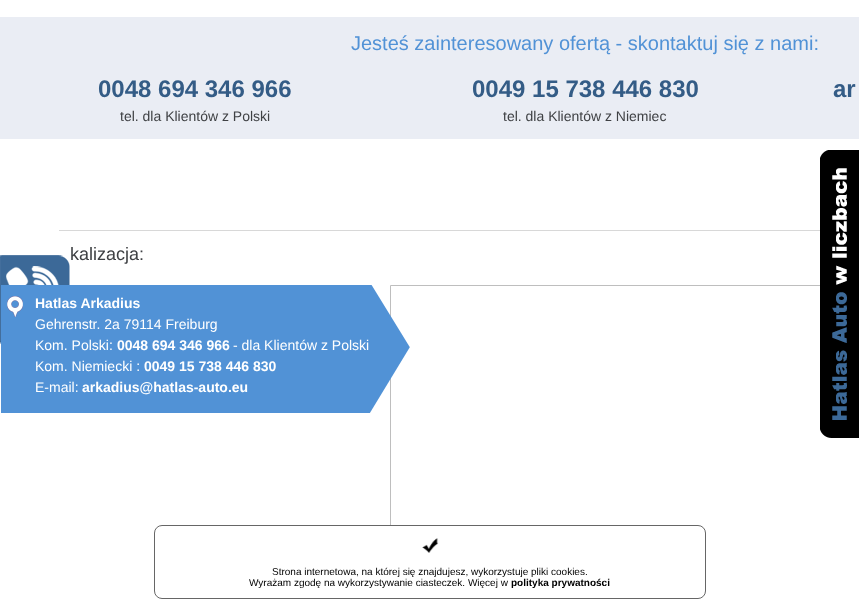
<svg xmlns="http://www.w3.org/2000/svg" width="859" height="599">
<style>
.a{font:20px Liberation Sans;fill:#5192d6}
.b{font:bold 24px Liberation Sans;fill:#345c86}
.c{font:14px Liberation Sans;fill:#3f4144}
.d{font:18px Liberation Sans;fill:#3f4144}
.e{font:bold 14px Liberation Sans;fill:#fff}
.f{font:14px Liberation Sans;fill:#fff}
.g{font:10px Liberation Sans;fill:#000}
.h{font:bold 10px Liberation Sans;fill:#000}
</style>
<rect width="100%" height="100%" fill="#fff"/>
<path fill="#eaedf4" d="M0 17h859v122H0z"/>
<path fill="#d8d8d8" d="M59 230h761v1H59z"/>
<path fill="none" stroke="#bebebe" d="M390.5 285.5h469v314H390.5z"/>
<image href="3.png" x="0" y="255" width="70" height="89"/>
<image href="1.png" x="1" y="285" width="409" height="128"/>
<image href="2.png" x="820" y="150" width="39" height="288"/>
<rect fill="#fff" stroke="#666" x="154.5" y="525.5" width="551" height="73" rx="7.5"/>
<image href="4.png" x="422" y="538" width="17" height="15"/>
<text class="a" x="351" y="50">Jesteś zainteresowany ofertą - skontaktuj się z nami:</text>
<text class="b" x="98" y="97">0048 694 346 966</text>
<text class="c" x="120" y="121">tel. dla Klientów z Polski</text>
<text class="b" x="472" y="97">0049 15 738 446 830</text>
<text class="c" x="503" y="121">tel. dla Klientów z Niemiec</text>
<text class="b" x="833" y="97">ar</text>
<text class="d" x="70" y="260">kalizacja:</text>
<text class="e" x="35" y="308">Hatlas Arkadius</text>
<text class="f" x="35" y="329">Gehrenstr. 2a 79114 Freiburg</text>
<text class="f" x="35" y="350">Kom. Polski:</text>
<text class="e" x="117" y="350">0048 694 346 966</text>
<text class="f" x="233" y="350">- dla Klientów z Polski</text>
<text class="f" x="35" y="371">Kom. Niemiecki :</text>
<text class="e" x="144" y="371">0049 15 738 446 830</text>
<text class="f" x="35" y="392">E-mail:</text>
<text class="e" x="82" y="392">arkadius@hatlas-auto.eu</text>
<text class="g" x="272" y="575">Strona internetowa, na której się znajdujesz, wykorzystuje pliki cookies.</text>
<text class="g" x="249" y="586">Wyrażam zgodę na wykorzystywanie ciasteczek. Więcej w</text>
<text class="h" x="511" y="586">polityka prywatności</text>
</svg>
